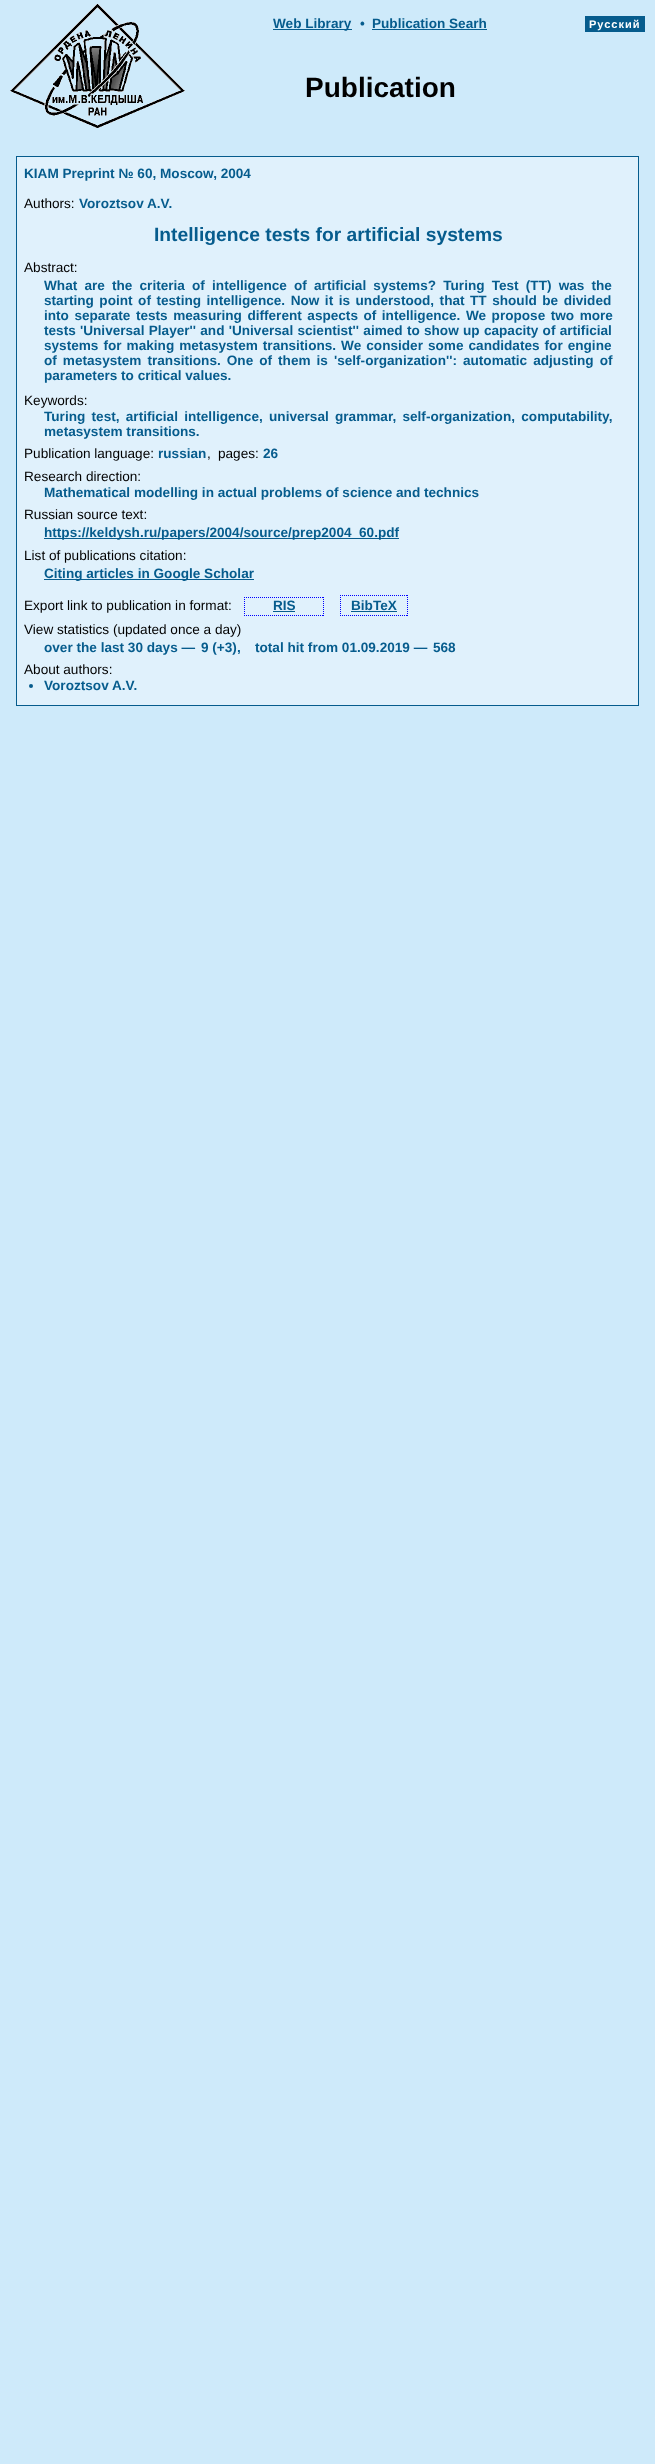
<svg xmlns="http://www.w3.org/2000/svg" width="655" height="2464">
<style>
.a{font:bold 13.6px Liberation Sans;fill:#065c8d}
.b{font:bold 11px Liberation Sans;letter-spacing:1px;fill:#fff}
.c{font:bold 28px Liberation Sans;fill:#000}
.d{font:13.6px Liberation Sans;fill:#000}
.e{font:bold 19.25px Liberation Sans;fill:#065c8d}
</style>
<rect width="100%" height="100%" fill="#ceeafa"/>
<image href="1.png" x="10" y="4" width="175" height="124"/>
<path fill="#065c8d" d="M273 29h79v1H273z"/>
<path fill="#065c8d" d="M372 29h115v1H372z"/>
<path fill="#065c8d" d="M585 16h60v16H585z"/>
<path fill="#065c8d" d="M16 156h623v550H16z"/>
<path fill="#e0f1fc" d="M17 157h621v548H17z"/>
<path fill="#065c8d" d="M44 538h355v1H44z"/>
<path fill="#065c8d" d="M44 579h210v1H44z"/>
<path fill="none" stroke="#00f" stroke-dasharray="1 1" d="M244 597.5h80"/>
<path fill="none" stroke="#00f" stroke-dasharray="1 1" d="M323.5 597v19"/>
<path fill="none" stroke="#00f" stroke-dasharray="1 1" d="M244 615.5h80"/>
<path fill="none" stroke="#00f" stroke-dasharray="1 1" d="M244.5 597v19"/>
<path fill="#065c8d" d="M273 611h22v1H273z"/>
<path fill="none" stroke="#00f" stroke-dasharray="1 1" d="M340 595.5h68"/>
<path fill="none" stroke="#00f" stroke-dasharray="1 1" d="M407.5 595v21"/>
<path fill="none" stroke="#00f" stroke-dasharray="1 1" d="M340 615.5h68"/>
<path fill="none" stroke="#00f" stroke-dasharray="1 1" d="M340.5 595v21"/>
<path fill="#065c8d" d="M351 611h46v1H351z"/>
<circle fill="#065c8d" cx="31" cy="686" r="2"/>
<text class="a" x="273" y="28">Web Library</text>
<text class="a" x="360" y="28">•</text>
<text class="a" x="372" y="28">Publication Searh</text>
<text class="b" x="589" y="28">Русский</text>
<text class="c" x="305" y="97">Publication</text>
<text class="a" x="24" y="178">KIAM Preprint № 60, Moscow, 2004</text>
<text class="d" x="24" y="208">Authors:</text>
<text class="a" x="79" y="208">Voroztsov A.V.</text>
<text class="e" x="154" y="241">Intelligence tests for artificial systems</text>
<text class="d" x="24" y="272">Abstract:</text>
<text class="a" x="44" y="290" word-spacing="3.4">What are the criteria of intelligence of artificial systems? Turing Test (TT) was the</text>
<text class="a" x="44" y="305" word-spacing="1.75">starting point of testing intelligence. Now it is understood, that TT should be divided</text>
<text class="a" x="44" y="320" word-spacing="1.75">into separate tests measuring different aspects of intelligence. We propose two more</text>
<text class="a" x="44" y="335" word-spacing="0.5">tests 'Universal Player'' and 'Universal scientist'' aimed to show up capacity of artificial</text>
<text class="a" x="44" y="350" word-spacing="1.25">systems for making metasystem transitions. We consider some candidates for engine</text>
<text class="a" x="44" y="365" word-spacing="2.25">of metasystem transitions. One of them is 'self-organization'': automatic adjusting of</text>
<text class="a" x="44" y="380">parameters to critical values.</text>
<text class="d" x="24" y="405">Keywords:</text>
<text class="a" x="44" y="421" word-spacing="2.5">Turing test, artificial intelligence, universal grammar, self-organization, computability,</text>
<text class="a" x="44" y="436">metasystem transitions.</text>
<text class="d" x="24" y="458">Publication language:</text>
<text class="a" x="158" y="458">russian</text>
<text class="d" x="207" y="458">,</text>
<text class="d" x="218" y="458">pages:</text>
<text class="a" x="263" y="458">26</text>
<text class="d" x="24" y="481">Research direction:</text>
<text class="a" x="44" y="497">Mathematical modelling in actual problems of science and technics</text>
<text class="d" x="24" y="519">Russian source text:</text>
<text class="a" x="44" y="537">https://keldysh.ru/papers/2004/source/prep2004_60.pdf</text>
<text class="d" x="24" y="560">List of publications citation:</text>
<text class="a" x="44" y="578">Citing articles in Google Scholar</text>
<text class="d" x="24" y="610">Export link to publication in format:</text>
<text class="a" x="273" y="610">RIS</text>
<text class="a" x="351" y="610">BibTeX</text>
<text class="d" x="24" y="634">View statistics (updated once a day)</text>
<text class="a" x="44" y="652">over the last 30 days —</text>
<text class="a" x="201" y="652">9 (+3),</text>
<text class="a" x="255" y="652">total hit from 01.09.2019 —</text>
<text class="a" x="433" y="652">568</text>
<text class="d" x="24" y="674">About authors:</text>
<text class="a" x="44" y="690">Voroztsov A.V.</text>
</svg>
